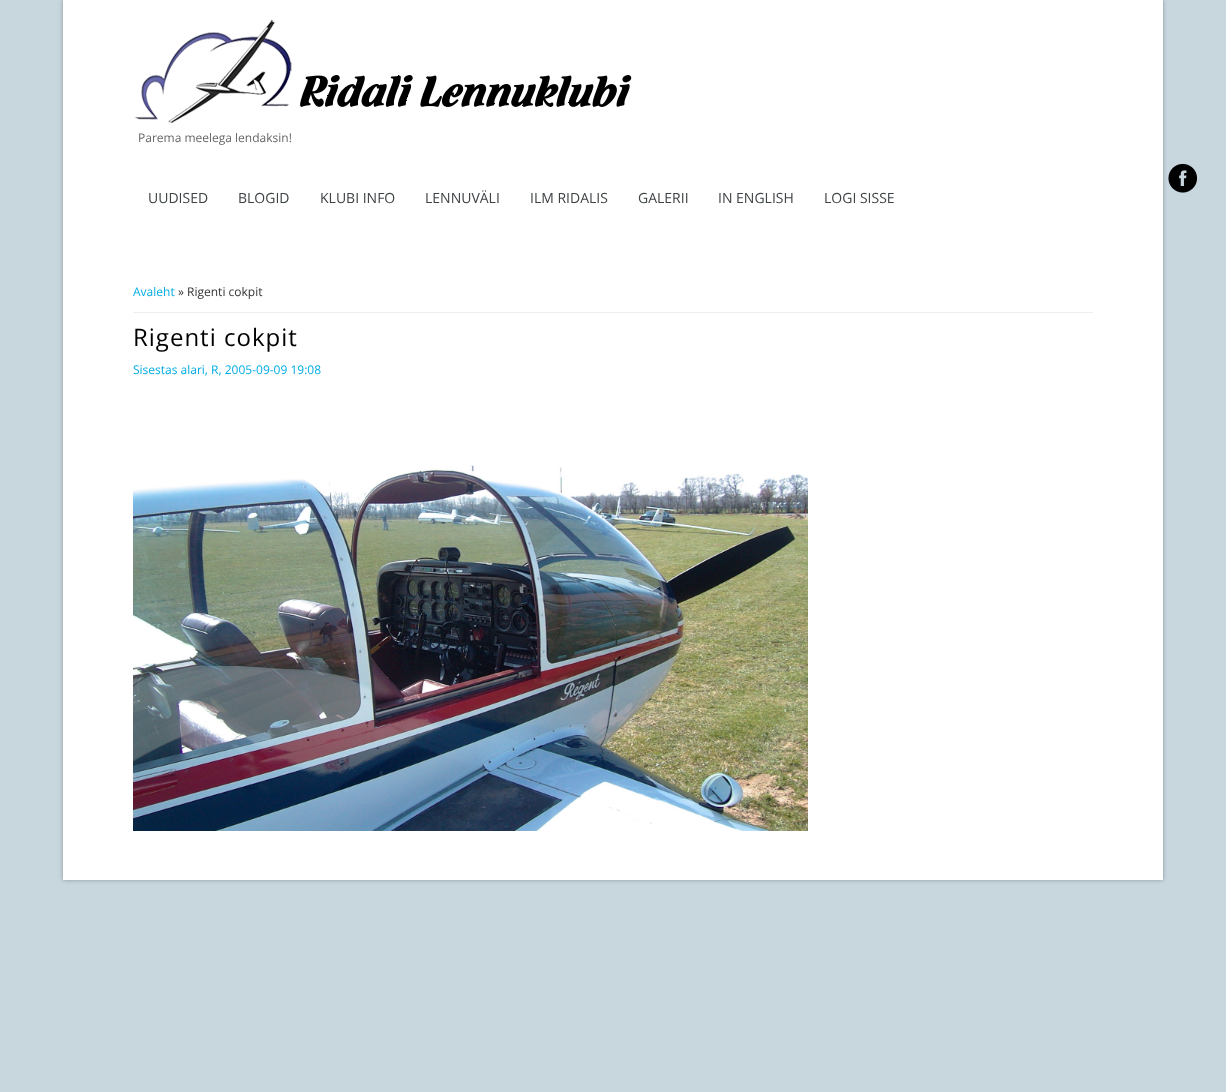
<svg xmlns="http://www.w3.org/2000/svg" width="1226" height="1092">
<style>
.a{font:12px Open Sans;fill:#666}
.b{font:14px Open Sans;fill:#3d4244}
.c{font:12px Open Sans;fill:#01ace4}
.d{font:12px Open Sans;fill:#333}
.e{font:24px Open Sans;letter-spacing:1px;fill:#000}
</style>
<rect width="100%" height="100%" fill="#c8d7de"/>
<path fill="#0000004d" filter="blur(2px)" d="M63 0h1100v880H63z"/>
<path fill="#fff" d="M63 0h1100v880H63z"/>
<image href="1.png" x="134" y="20" width="498" height="103"/>
<image href="2.png" x="1168" y="163" width="30" height="30"/>
<path fill="#eee" d="M133 312h960v1H133z"/>
<image href="3.png" x="133" y="465" width="675" height="366"/>
<text class="a" x="138" y="142">Parema meelega lendaksin!</text>
<text class="b" x="148" y="203">UUDISED</text>
<text class="b" x="238" y="203">BLOGID</text>
<text class="b" x="320" y="203">KLUBI INFO</text>
<text class="b" x="425" y="203">LENNUVÄLI</text>
<text class="b" x="530" y="203">ILM RIDALIS</text>
<text class="b" x="638" y="203">GALERII</text>
<text class="b" x="718" y="203">IN ENGLISH</text>
<text class="b" x="824" y="203">LOGI SISSE</text>
<text class="c" x="133" y="296">Avaleht</text>
<text class="d" x="178" y="296">» Rigenti cokpit</text>
<text class="e" x="133" y="346">Rigenti cokpit</text>
<text class="c" x="133" y="374">Sisestas alari, R, 2005-09-09 19:08</text>
</svg>
